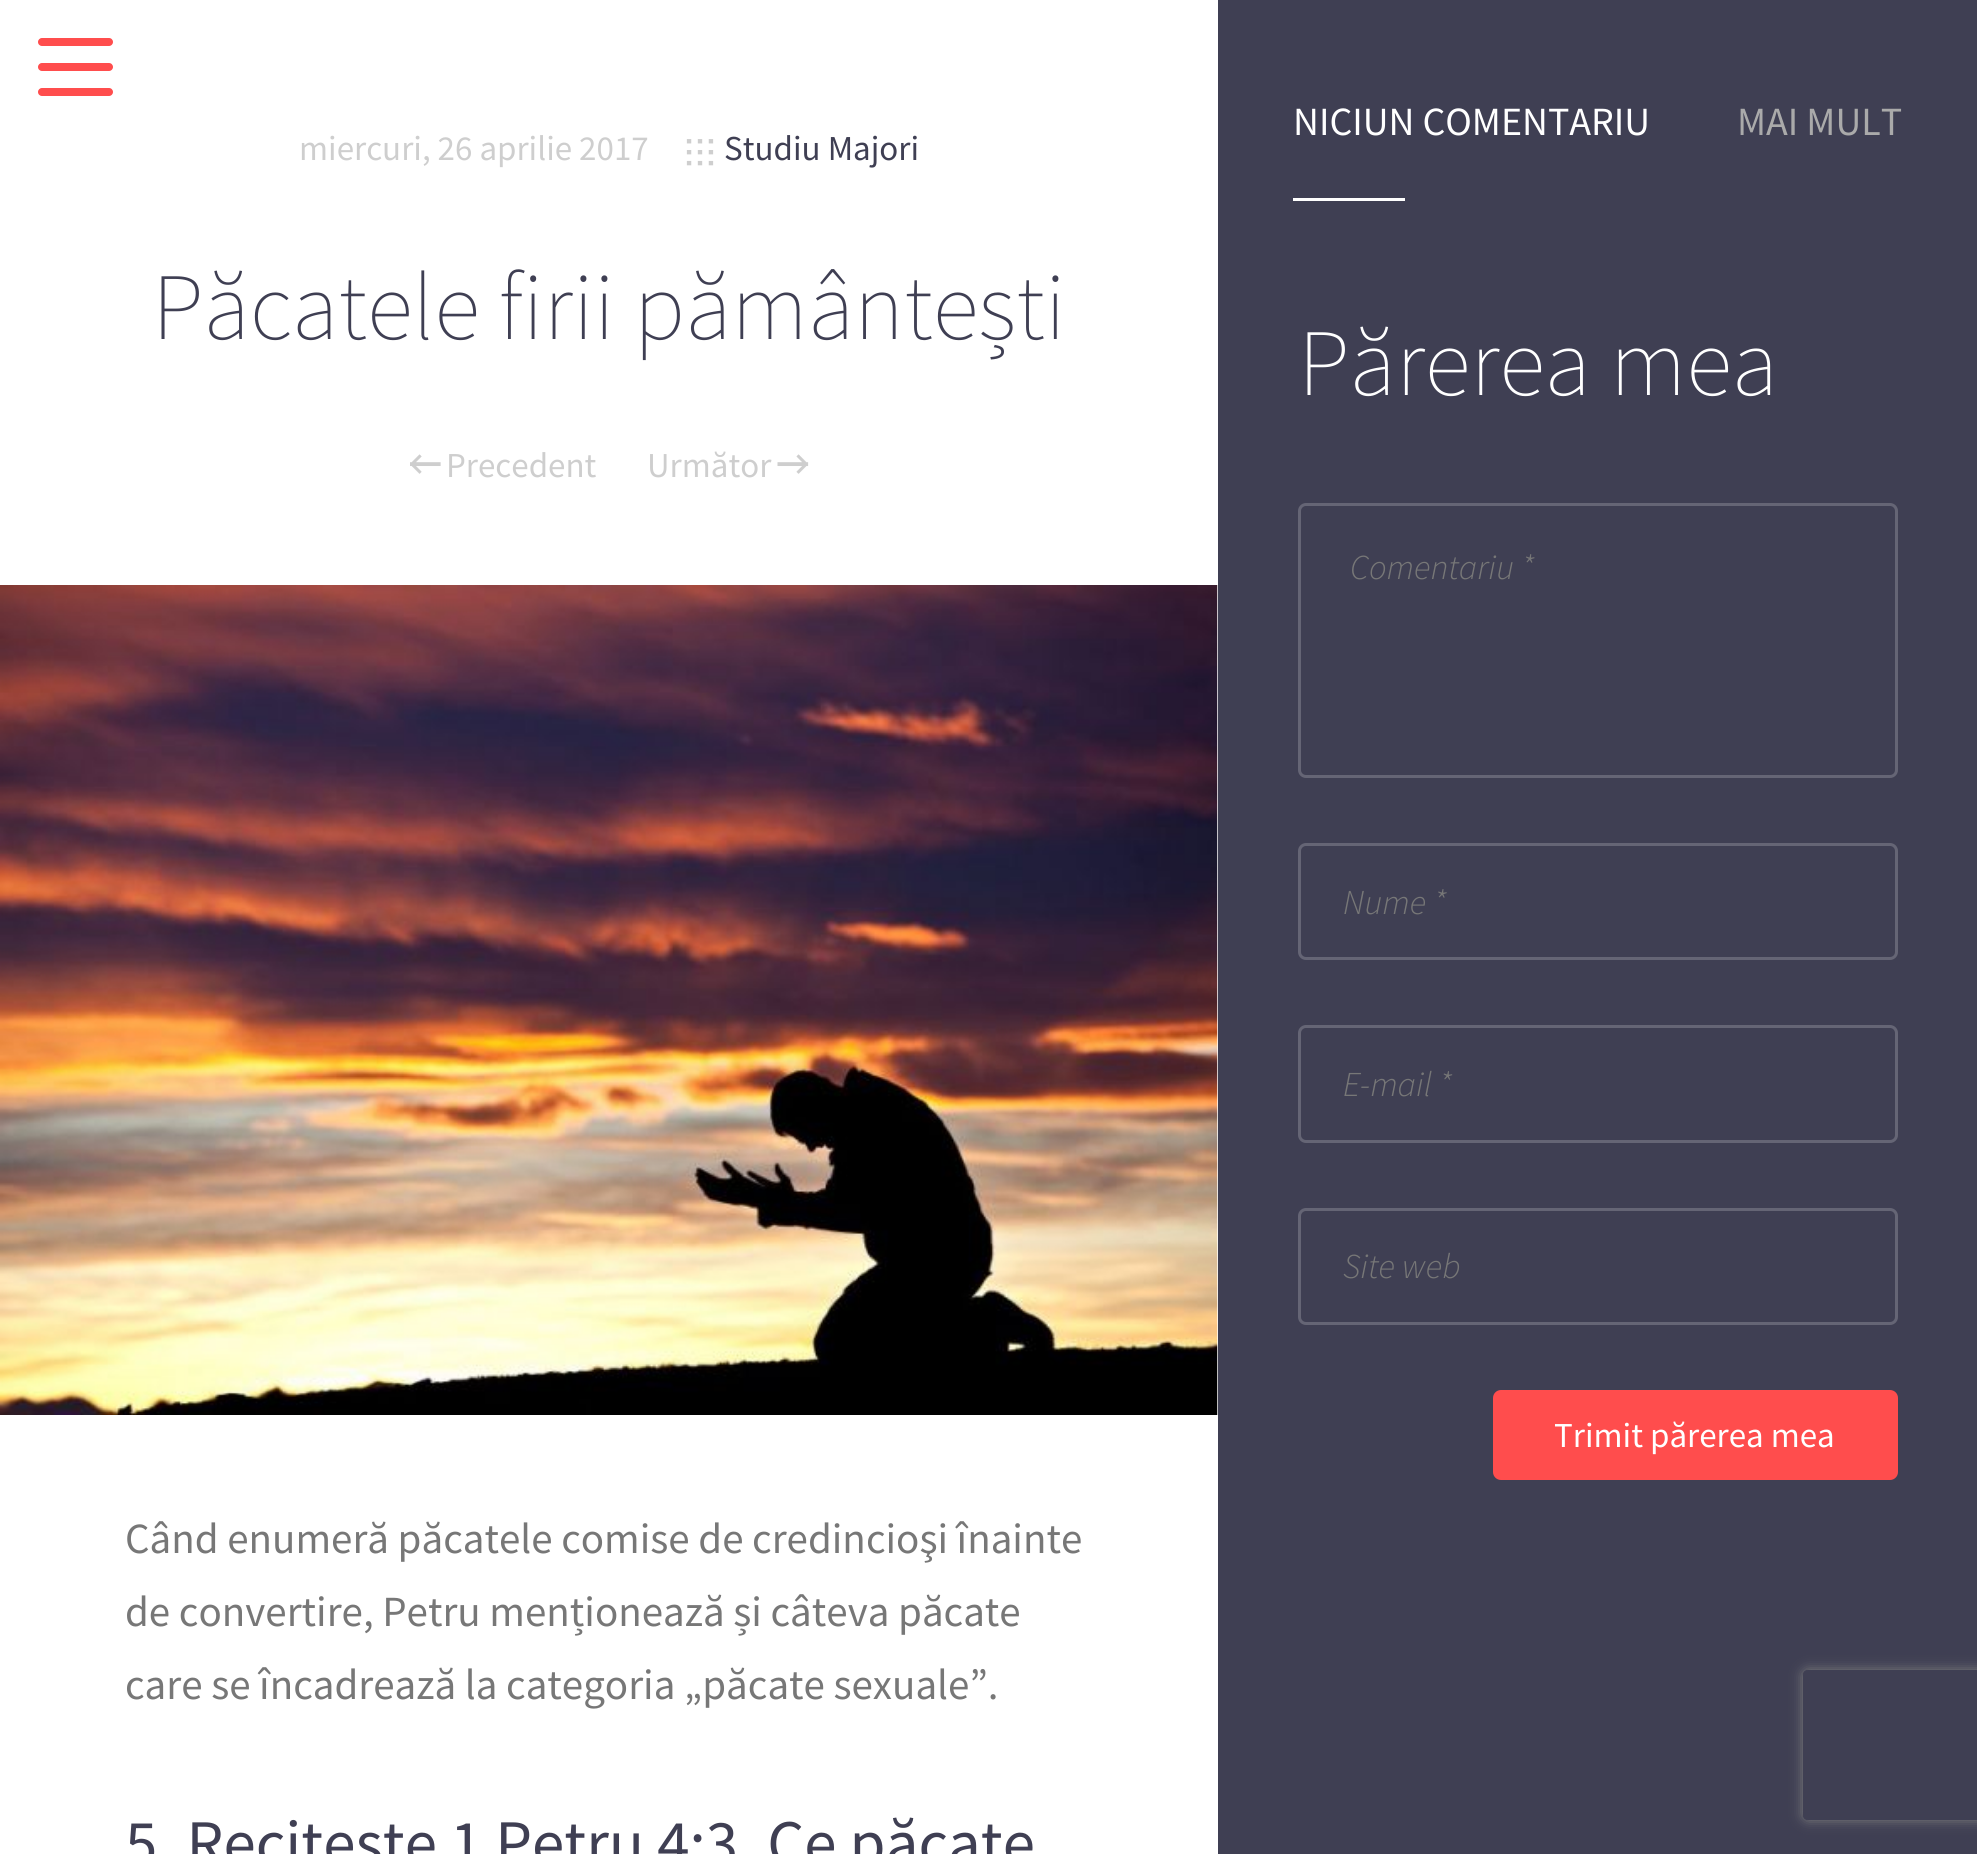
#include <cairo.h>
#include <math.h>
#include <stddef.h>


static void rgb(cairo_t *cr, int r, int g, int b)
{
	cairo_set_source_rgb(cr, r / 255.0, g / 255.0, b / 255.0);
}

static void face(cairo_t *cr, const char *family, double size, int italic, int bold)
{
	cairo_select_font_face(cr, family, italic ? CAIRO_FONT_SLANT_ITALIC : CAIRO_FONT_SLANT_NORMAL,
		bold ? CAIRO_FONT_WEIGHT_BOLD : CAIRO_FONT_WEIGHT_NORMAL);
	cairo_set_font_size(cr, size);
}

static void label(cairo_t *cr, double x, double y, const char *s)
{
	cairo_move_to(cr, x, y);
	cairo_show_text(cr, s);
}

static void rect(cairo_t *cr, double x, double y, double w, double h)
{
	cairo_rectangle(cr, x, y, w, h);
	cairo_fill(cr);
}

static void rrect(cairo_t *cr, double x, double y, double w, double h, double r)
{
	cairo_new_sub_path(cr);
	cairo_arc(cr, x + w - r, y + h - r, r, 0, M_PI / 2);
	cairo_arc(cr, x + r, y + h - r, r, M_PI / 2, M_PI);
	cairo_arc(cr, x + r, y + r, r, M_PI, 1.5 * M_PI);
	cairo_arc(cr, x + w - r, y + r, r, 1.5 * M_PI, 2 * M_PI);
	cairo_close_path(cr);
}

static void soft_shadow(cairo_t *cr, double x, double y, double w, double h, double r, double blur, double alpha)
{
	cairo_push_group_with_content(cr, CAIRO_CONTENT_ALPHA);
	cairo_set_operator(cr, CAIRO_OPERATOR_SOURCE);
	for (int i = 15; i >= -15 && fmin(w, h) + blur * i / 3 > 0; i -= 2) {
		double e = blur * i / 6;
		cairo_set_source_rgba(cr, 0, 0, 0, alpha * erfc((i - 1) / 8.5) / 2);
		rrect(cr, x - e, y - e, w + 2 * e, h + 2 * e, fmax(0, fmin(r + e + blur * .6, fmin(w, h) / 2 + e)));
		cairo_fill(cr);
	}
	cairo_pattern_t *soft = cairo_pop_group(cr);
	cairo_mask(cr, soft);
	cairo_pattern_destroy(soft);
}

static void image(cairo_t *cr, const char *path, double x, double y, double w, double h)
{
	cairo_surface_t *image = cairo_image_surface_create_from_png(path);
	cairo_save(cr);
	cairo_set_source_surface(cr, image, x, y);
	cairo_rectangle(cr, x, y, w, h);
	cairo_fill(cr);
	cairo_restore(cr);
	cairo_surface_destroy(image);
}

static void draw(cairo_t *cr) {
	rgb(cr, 255, 255, 255);
	cairo_paint(cr);
	rgb(cr, 255, 77, 77);
	rrect(cr, 38, 63, 75, 8, 4);
	cairo_fill(cr);
	rrect(cr, 38, 38, 75, 8, 4);
	cairo_fill(cr);
	rrect(cr, 38, 88, 75, 8, 4);
	cairo_fill(cr);
	face(cr, "Source Sans Pro", 35, 0, 0);
	rgb(cr, 206, 206, 206);
	label(cr, 299, 160, "miercuri, 26 aprilie 2017");
	image(cr, "image0.png", 686, 139, 28, 27);
	rgb(cr, 63, 63, 83);
	label(cr, 724, 160, "Studiu Majori");
	face(cr, "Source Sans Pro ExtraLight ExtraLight", 95, 0, 0);
	label(cr, 152, 339, "Păcatele firii pământești");
	image(cr, "image1.png", 410, 454, 31, 20);
	face(cr, "Source Sans Pro", 35, 0, 0);
	rgb(cr, 206, 206, 206);
	label(cr, 446, 477, "Precedent");
	label(cr, 647, 477, "Următor");
	image(cr, "image2.png", 777, 454, 32, 20);
	image(cr, "image3.png", 0, 585, 1218, 830);
	face(cr, "Source Sans Pro", 43, 0, 0);
	rgb(cr, 119, 119, 119);
	label(cr, 125, 1553, "Când enumeră păcatele comise de credincioşi înainte");
	label(cr, 125, 1626, "de convertire, Petru menționează și câteva păcate");
	label(cr, 125, 1699, "care se încadrează la categoria „păcate sexuale”.");
	face(cr, "Source Sans Pro", 65, 0, 0);
	rgb(cr, 63, 63, 83);
	label(cr, 125, 1865, "5. Recitește 1 Petru 4:3. Ce păcate");
	rect(cr, 1218, 0, 759, 1854);
	face(cr, "Source Sans Pro", 40, 0, 0);
	rgb(cr, 255, 255, 255);
	label(cr, 1293, 135, "NICIUN COMENTARIU");
	rgb(cr, 170, 170, 170);
	label(cr, 1737, 135, "MAI MULT");
	rgb(cr, 255, 255, 255);
	rect(cr, 1293, 198, 112, 3);
	face(cr, "Source Sans Pro ExtraLight ExtraLight", 95, 0, 0);
	label(cr, 1298, 395, "Părerea mea");
	rrect(cr, 1299.5, 504.5, 597, 272, 6.5);
	rgb(cr, 101, 101, 117);
	cairo_set_line_width(cr, 3);
	cairo_stroke(cr);
	face(cr, "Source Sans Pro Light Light", 35, 1, 0);
	rgb(cr, 119, 119, 119);
	label(cr, 1350, 579, "Comentariu *");
	rrect(cr, 1299.5, 844.5, 597, 114, 6.5);
	rgb(cr, 101, 101, 117);
	cairo_stroke(cr);
	rgb(cr, 119, 119, 119);
	label(cr, 1343, 914, "Nume *");
	rrect(cr, 1299.5, 1026.5, 597, 115, 6.5);
	rgb(cr, 101, 101, 117);
	cairo_stroke(cr);
	rgb(cr, 119, 119, 119);
	label(cr, 1343, 1096, "E-mail *");
	rrect(cr, 1299.5, 1209.5, 597, 114, 6.5);
	rgb(cr, 101, 101, 117);
	cairo_stroke(cr);
	rgb(cr, 119, 119, 119);
	label(cr, 1343, 1278, "Site web");
	rgb(cr, 255, 77, 77);
	rrect(cr, 1493, 1390, 405, 90, 8);
	cairo_fill(cr);
	face(cr, "Source Sans Pro", 35, 0, 0);
	rgb(cr, 255, 255, 255);
	label(cr, 1554, 1447, "Trimit părerea mea");
	cairo_save(cr);
	cairo_set_fill_rule(cr, CAIRO_FILL_RULE_EVEN_ODD);
	cairo_new_path(cr);
	cairo_move_to(cr, 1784, 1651);
	cairo_line_to(cr, 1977, 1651);
	cairo_line_to(cr, 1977, 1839);
	cairo_line_to(cr, 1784, 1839);
	cairo_close_path(cr);
	cairo_move_to(cr, 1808, 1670);
	cairo_line_to(cr, 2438, 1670);
	cairo_curve_to(cr, 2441, 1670, 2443, 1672, 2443, 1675);
	cairo_line_to(cr, 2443, 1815);
	cairo_curve_to(cr, 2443, 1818, 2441, 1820, 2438, 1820);
	cairo_line_to(cr, 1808, 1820);
	cairo_curve_to(cr, 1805, 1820, 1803, 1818, 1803, 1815);
	cairo_line_to(cr, 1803, 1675);
	cairo_curve_to(cr, 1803, 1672, 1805, 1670, 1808, 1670);
	cairo_close_path(cr);
	cairo_clip(cr);
	rgb(cr, 128, 128, 128);
	soft_shadow(cr, 1803, 1670, 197, 150, 5, 6, 1);
	cairo_restore(cr);
}

int main(void) {
	cairo_surface_t *surface = cairo_image_surface_create(CAIRO_FORMAT_RGB24, 1977, 1854);
	cairo_t *cr = cairo_create(surface);
	cairo_font_options_t *options = cairo_font_options_create();
	cairo_font_options_set_hint_metrics(options, CAIRO_HINT_METRICS_OFF);
	cairo_font_options_set_hint_style(options, CAIRO_HINT_STYLE_NONE);
	cairo_set_font_options(cr, options);
	cairo_set_miter_limit(cr, 4);
	draw(cr);
	cairo_surface_write_to_png(surface, "render.png");
	cairo_font_options_destroy(options);
	cairo_destroy(cr);
	cairo_surface_destroy(surface);
	return 0;
}
